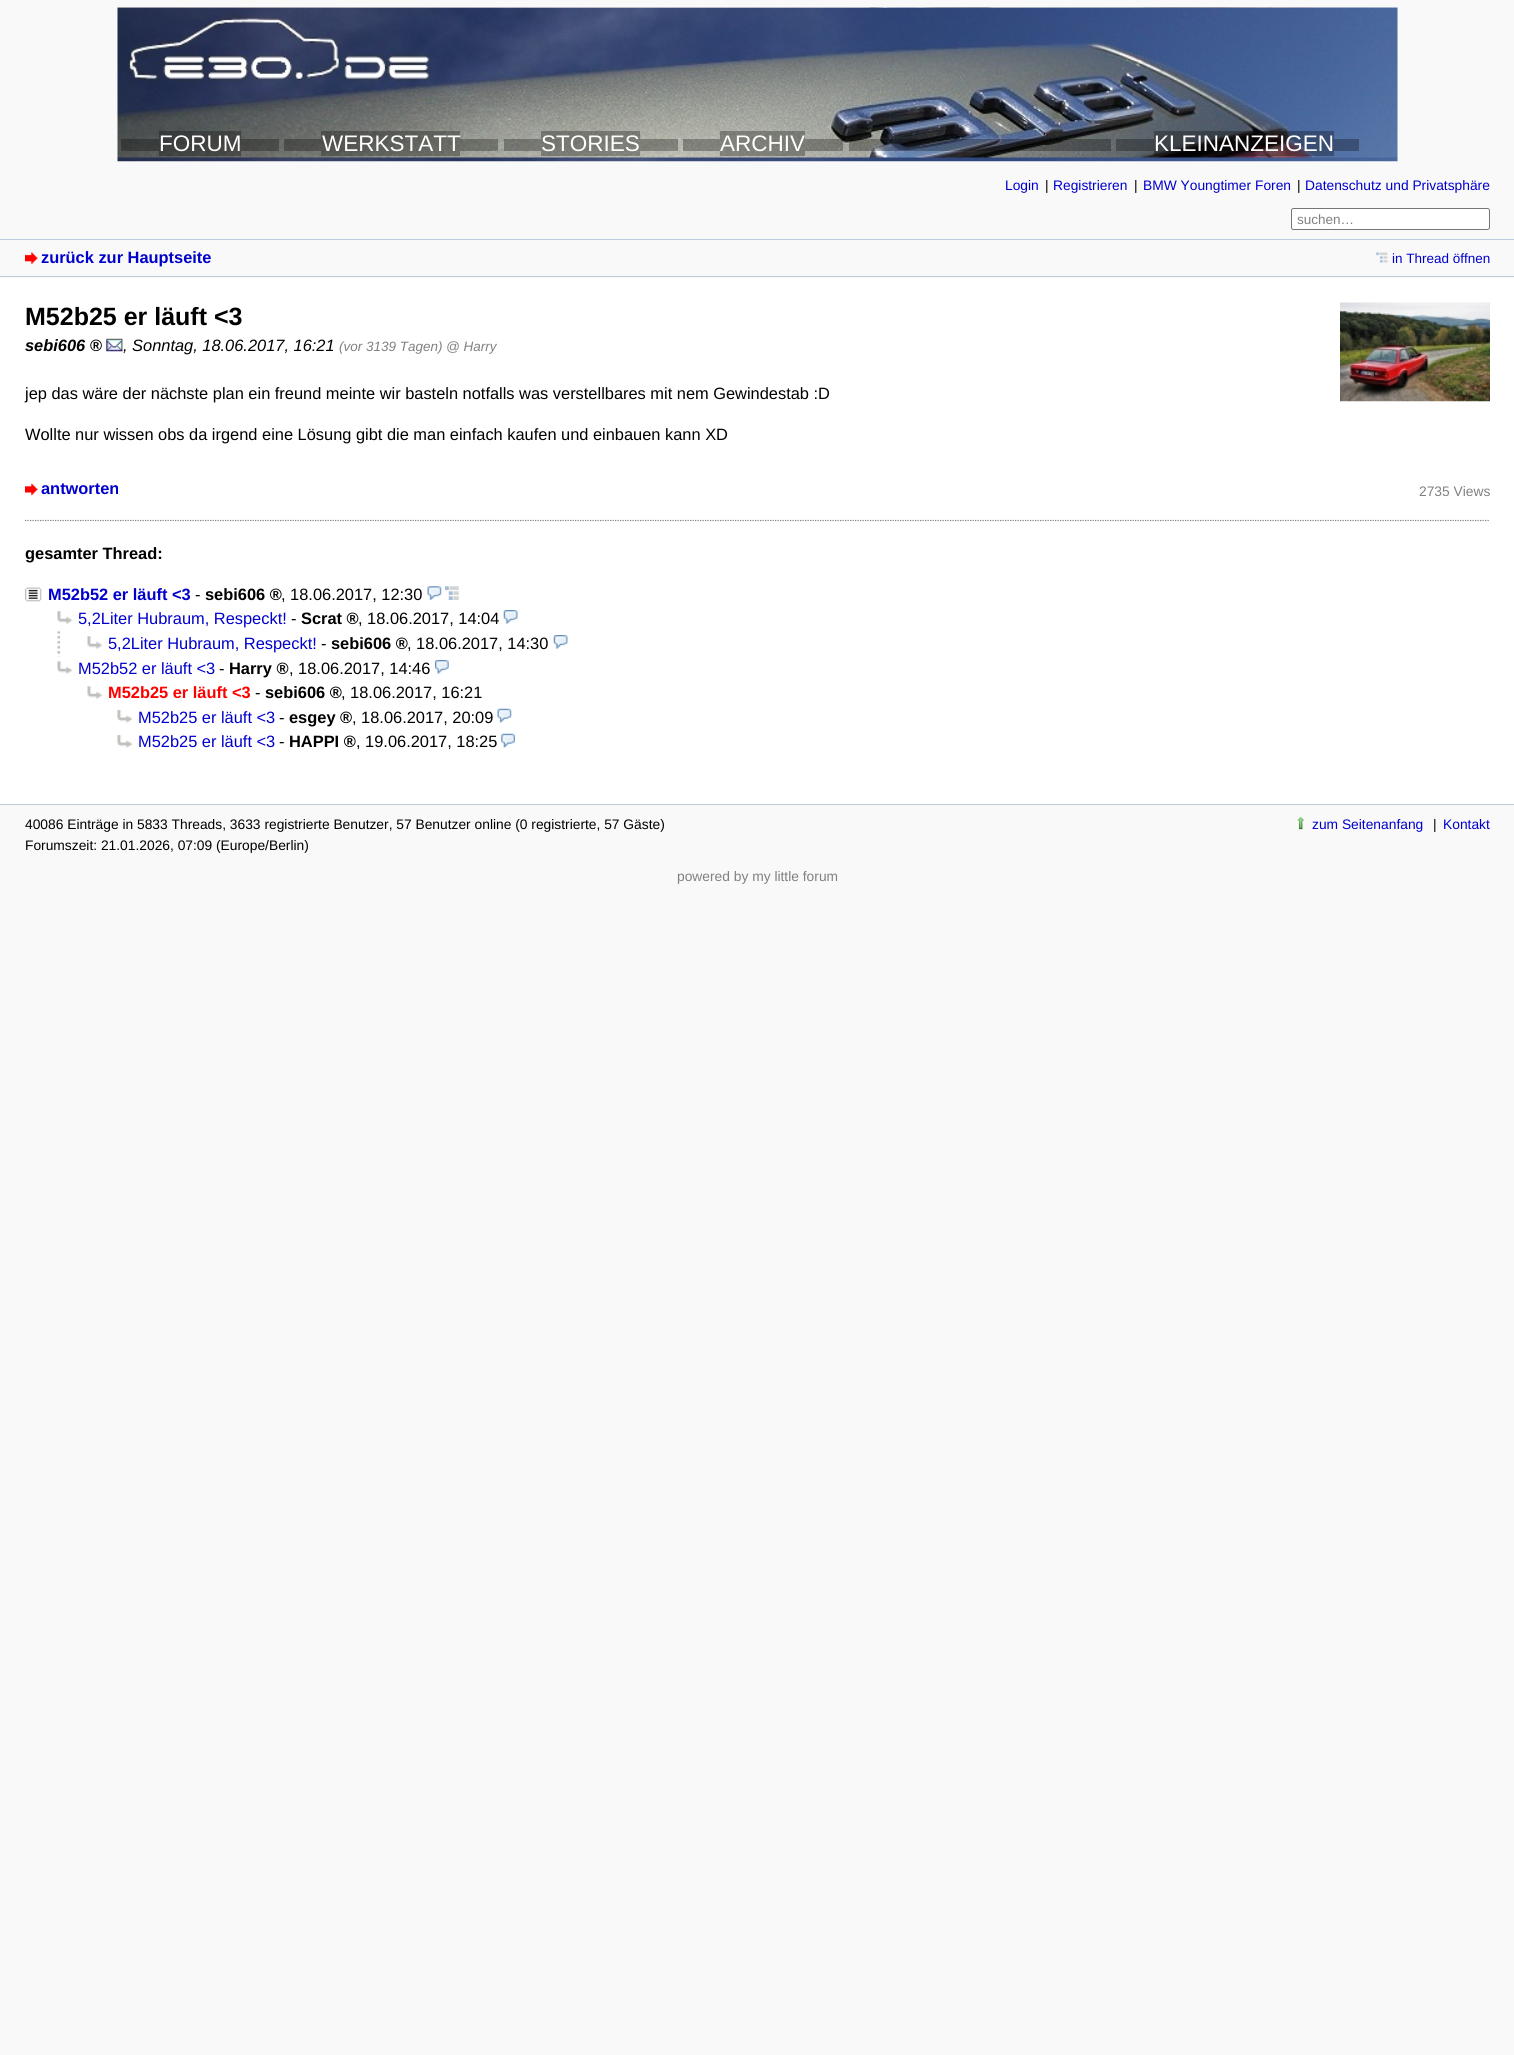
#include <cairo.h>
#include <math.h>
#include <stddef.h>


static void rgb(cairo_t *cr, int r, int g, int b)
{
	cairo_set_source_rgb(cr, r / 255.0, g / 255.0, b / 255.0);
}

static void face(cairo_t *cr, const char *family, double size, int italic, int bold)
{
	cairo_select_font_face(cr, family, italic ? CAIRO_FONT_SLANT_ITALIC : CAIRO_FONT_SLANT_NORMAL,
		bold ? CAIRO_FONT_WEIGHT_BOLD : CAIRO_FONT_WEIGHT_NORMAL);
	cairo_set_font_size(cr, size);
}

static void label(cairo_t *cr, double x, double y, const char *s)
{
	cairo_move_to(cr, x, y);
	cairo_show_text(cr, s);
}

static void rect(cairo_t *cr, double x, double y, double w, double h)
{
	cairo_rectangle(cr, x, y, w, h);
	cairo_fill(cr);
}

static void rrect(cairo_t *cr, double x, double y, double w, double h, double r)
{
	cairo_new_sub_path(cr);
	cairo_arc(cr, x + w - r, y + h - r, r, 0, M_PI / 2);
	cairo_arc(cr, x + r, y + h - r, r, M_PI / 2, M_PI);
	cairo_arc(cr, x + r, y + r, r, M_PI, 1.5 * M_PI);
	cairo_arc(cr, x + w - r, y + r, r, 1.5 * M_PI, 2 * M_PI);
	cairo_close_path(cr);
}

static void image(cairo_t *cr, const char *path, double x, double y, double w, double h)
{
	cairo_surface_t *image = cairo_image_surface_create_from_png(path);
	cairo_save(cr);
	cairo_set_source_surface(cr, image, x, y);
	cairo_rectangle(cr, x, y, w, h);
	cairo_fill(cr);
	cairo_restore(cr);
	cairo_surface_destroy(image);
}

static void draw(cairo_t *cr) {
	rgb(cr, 249, 249, 249);
	cairo_paint(cr);
	image(cr, "image0.png", 117, 7, 1281, 155);
	cairo_set_source_rgba(cr, 0, 0, 0, 0.3);
	rect(cr, 159, 131, 82, 25);
	face(cr, "Liberation Sans", 22.5, 0, 0);
	rgb(cr, 255, 255, 255);
	label(cr, 159, 151, "FORUM");
	cairo_set_source_rgba(cr, 0, 0, 0, 0.3);
	rect(cr, 121, 139, 38, 12);
	rect(cr, 241, 139, 38, 12);
	rect(cr, 321, 131, 139, 25);
	rect(cr, 460, 139, 38, 12);
	rgb(cr, 255, 255, 255);
	label(cr, 322, 151, "WERKSTATT");
	cairo_set_source_rgba(cr, 0, 0, 0, 0.3);
	rect(cr, 284, 139, 37, 12);
	rect(cr, 541, 131, 99, 25);
	rgb(cr, 255, 255, 255);
	label(cr, 541, 151, "STORIES");
	cairo_set_source_rgba(cr, 0, 0, 0, 0.3);
	rect(cr, 504, 139, 37, 12);
	rect(cr, 640, 139, 38, 12);
	rect(cr, 720, 131, 85, 25);
	rect(cr, 805, 139, 38, 12);
	rgb(cr, 255, 255, 255);
	label(cr, 720, 151, "ARCHIV");
	cairo_set_source_rgba(cr, 0, 0, 0, 0.3);
	rect(cr, 683, 139, 37, 12);
	rect(cr, 849, 139, 225, 12);
	rect(cr, 1074, 139, 37, 12);
	rect(cr, 1154, 131, 180, 25);
	rgb(cr, 255, 255, 255);
	label(cr, 1154, 151, "KLEINANZEIGEN");
	cairo_set_source_rgba(cr, 0, 0, 0, 0.3);
	rect(cr, 1116, 139, 38, 12);
	rect(cr, 1334, 139, 25, 12);
	face(cr, "Liberation Sans", 13.8, 0, 0);
	rgb(cr, 0, 0, 204);
	label(cr, 1005, 190, "Login");
	rgb(cr, 0, 0, 0);
	label(cr, 1045, 190, "|");
	rgb(cr, 0, 0, 204);
	label(cr, 1053, 190, "Registrieren");
	rgb(cr, 0, 0, 0);
	label(cr, 1134, 190, "|");
	rgb(cr, 0, 0, 204);
	label(cr, 1143, 190, "BMW Youngtimer Foren");
	rgb(cr, 0, 0, 0);
	label(cr, 1297, 190, "|");
	rgb(cr, 0, 0, 204);
	label(cr, 1305, 190, "Datenschutz und Privatsphäre");
	rgb(cr, 255, 255, 255);
	rrect(cr, 1291.5, 208.5, 198, 21, 2);
	cairo_fill_preserve(cr);
	rgb(cr, 118, 118, 118);
	cairo_set_line_width(cr, 1);
	cairo_stroke(cr);
	face(cr, "Liberation Sans", 13.5, 0, 0);
	rgb(cr, 128, 128, 128);
	label(cr, 1297, 224, "suchen…");
	rgb(cr, 186, 203, 223);
	rect(cr, 0, 239, 1514, 1);
	rect(cr, 0, 276, 1514, 1);
	image(cr, "image1.png", 25, 252, 13, 12);
	face(cr, "Liberation Sans", 16.4, 0, 1);
	rgb(cr, 0, 0, 204);
	label(cr, 41, 263, "zurück zur Hauptseite");
	image(cr, "image2.png", 1376, 252, 12, 11);
	face(cr, "Liberation Sans", 13.5, 0, 0);
	label(cr, 1392, 263, "in Thread öffnen");
	rgb(cr, 255, 255, 255);
	rect(cr, 0, 278, 1514, 526);
	face(cr, "Liberation Sans", 25, 0, 1);
	rgb(cr, 0, 0, 0);
	label(cr, 25, 325, "M52b25 er läuft <3");
	image(cr, "image3.png", 1340, 302, 150, 100);
	face(cr, "Liberation Sans", 16.4, 1, 1);
	label(cr, 25, 351, "sebi606 ®");
	image(cr, "image4.png", 106, 338, 17, 14);
	face(cr, "Liberation Sans", 16.4, 1, 0);
	label(cr, 123, 351, ", Sonntag, 18.06.2017, 16:21");
	face(cr, "Liberation Sans", 13.5, 1, 0);
	rgb(cr, 128, 128, 128);
	label(cr, 339, 351, "(vor 3139 Tagen)");
	label(cr, 446, 351, "@ Harry");
	face(cr, "Liberation Sans", 16.4, 0, 0);
	rgb(cr, 0, 0, 0);
	label(cr, 25, 399, "jep das wäre der nächste plan ein freund meinte wir basteln notfalls was verstellbares mit nem Gewindestab :D");
	label(cr, 25, 440, "Wollte nur wissen obs da irgend eine Lösung gibt die man einfach kaufen und einbauen kann XD");
	image(cr, "image5.png", 25, 483, 13, 13);
	face(cr, "Liberation Sans", 16.4, 0, 1);
	rgb(cr, 0, 0, 204);
	label(cr, 41, 494, "antworten");
	face(cr, "Liberation Sans", 13.8, 0, 0);
	rgb(cr, 128, 128, 128);
	label(cr, 1419, 496, "2735 Views");
	cairo_new_path(cr);
	cairo_move_to(cr, 25, 520.5);
	cairo_line_to(cr, 1490, 520.5);
	cairo_set_line_width(cr, 1.2);
	cairo_set_dash(cr, (double[]){1.25, 1.25}, 2, 0);
	cairo_stroke(cr);
	face(cr, "Liberation Sans", 16.4, 0, 1);
	rgb(cr, 0, 0, 0);
	label(cr, 25, 559, "gesamter Thread:");
	image(cr, "image6.png", 25, 587, 17, 15);
	rgb(cr, 0, 0, 204);
	label(cr, 48, 600, "M52b52 er läuft <3");
	face(cr, "Liberation Sans", 16.4, 0, 0);
	rgb(cr, 0, 0, 0);
	label(cr, 195, 600, "-");
	face(cr, "Liberation Sans", 16.4, 0, 1);
	label(cr, 205, 600, "sebi606 ®");
	face(cr, "Liberation Sans", 16.4, 0, 0);
	label(cr, 281, 600, ", 18.06.2017, 12:30");
	image(cr, "image7.png", 427, 586, 15, 14);
	image(cr, "image8.png", 445, 586, 14, 14);
	image(cr, "image9.png", 57, 611, 16, 13);
	rgb(cr, 0, 0, 204);
	label(cr, 78, 624, "5,2Liter Hubraum, Respeckt!");
	rgb(cr, 0, 0, 0);
	label(cr, 291, 624, "-");
	face(cr, "Liberation Sans", 16.4, 0, 1);
	label(cr, 301, 624, "Scrat ®");
	face(cr, "Liberation Sans", 16.4, 0, 0);
	label(cr, 358, 624, ", 18.06.2017, 14:04");
	image(cr, "image10.png", 503, 610, 15, 14);
	image(cr, "image11.png", 57, 631, 3, 26);
	image(cr, "image12.png", 87, 636, 16, 13);
	rgb(cr, 0, 0, 204);
	label(cr, 108, 649, "5,2Liter Hubraum, Respeckt!");
	rgb(cr, 0, 0, 0);
	label(cr, 321, 649, "-");
	face(cr, "Liberation Sans", 16.4, 0, 1);
	label(cr, 331, 649, "sebi606 ®");
	face(cr, "Liberation Sans", 16.4, 0, 0);
	label(cr, 407, 649, ", 18.06.2017, 14:30");
	image(cr, "image13.png", 553, 635, 15, 14);
	image(cr, "image9.png", 57, 661, 16, 13);
	rgb(cr, 0, 0, 204);
	label(cr, 78, 674, "M52b52 er läuft <3");
	rgb(cr, 0, 0, 0);
	label(cr, 219, 674, "-");
	face(cr, "Liberation Sans", 16.4, 0, 1);
	label(cr, 229, 674, "Harry ®");
	face(cr, "Liberation Sans", 16.4, 0, 0);
	label(cr, 289, 674, ", 18.06.2017, 14:46");
	image(cr, "image14.png", 435, 660, 14, 14);
	image(cr, "image12.png", 87, 686, 16, 13);
	face(cr, "Liberation Sans", 16.4, 0, 1);
	rgb(cr, 255, 0, 0);
	label(cr, 108, 698, "M52b25 er läuft <3");
	face(cr, "Liberation Sans", 16.4, 0, 0);
	rgb(cr, 0, 0, 0);
	label(cr, 255, 698, "-");
	face(cr, "Liberation Sans", 16.4, 0, 1);
	label(cr, 265, 698, "sebi606 ®");
	face(cr, "Liberation Sans", 16.4, 0, 0);
	label(cr, 341, 698, ", 18.06.2017, 16:21");
	image(cr, "image15.png", 117, 710, 16, 13);
	rgb(cr, 0, 0, 204);
	label(cr, 138, 723, "M52b25 er läuft <3");
	rgb(cr, 0, 0, 0);
	label(cr, 279, 723, "-");
	face(cr, "Liberation Sans", 16.4, 0, 1);
	label(cr, 289, 723, "esgey ®");
	face(cr, "Liberation Sans", 16.4, 0, 0);
	label(cr, 352, 723, ", 18.06.2017, 20:09");
	image(cr, "image16.png", 497, 708, 15, 15);
	image(cr, "image15.png", 117, 735, 16, 13);
	rgb(cr, 0, 0, 204);
	label(cr, 138, 747, "M52b25 er läuft <3");
	rgb(cr, 0, 0, 0);
	label(cr, 279, 747, "-");
	face(cr, "Liberation Sans", 16.4, 0, 1);
	label(cr, 289, 747, "HAPPI ®");
	face(cr, "Liberation Sans", 16.4, 0, 0);
	label(cr, 356, 747, ", 19.06.2017, 18:25");
	image(cr, "image17.png", 501, 733, 14, 15);
	rgb(cr, 186, 203, 223);
	rect(cr, 0, 804, 1514, 1);
	face(cr, "Liberation Sans", 13.8, 0, 0);
	rgb(cr, 0, 0, 0);
	label(cr, 25, 829, "40086 Einträge in 5833 Threads, 3633 registrierte Benutzer, 57 Benutzer online (0 registrierte, 57 Gäste)");
	label(cr, 25, 850, "Forumszeit: 21.01.2026, 07:09 (Europe/Berlin)");
	image(cr, "image18.png", 1297, 817, 7, 13);
	rgb(cr, 0, 0, 204);
	label(cr, 1312, 829, "zum Seitenanfang");
	rgb(cr, 0, 0, 0);
	label(cr, 1433, 829, "|");
	rgb(cr, 0, 0, 204);
	label(cr, 1443, 829, "Kontakt");
	rgb(cr, 128, 128, 128);
	label(cr, 677, 881, "powered by my little forum");
}

int main(void) {
	cairo_surface_t *surface = cairo_image_surface_create(CAIRO_FORMAT_RGB24, 1514, 2055);
	cairo_t *cr = cairo_create(surface);
	cairo_font_options_t *options = cairo_font_options_create();
	cairo_font_options_set_hint_metrics(options, CAIRO_HINT_METRICS_OFF);
	cairo_font_options_set_hint_style(options, CAIRO_HINT_STYLE_NONE);
	cairo_set_font_options(cr, options);
	cairo_set_miter_limit(cr, 4);
	draw(cr);
	cairo_surface_write_to_png(surface, "render.png");
	cairo_font_options_destroy(options);
	cairo_destroy(cr);
	cairo_surface_destroy(surface);
	return 0;
}
